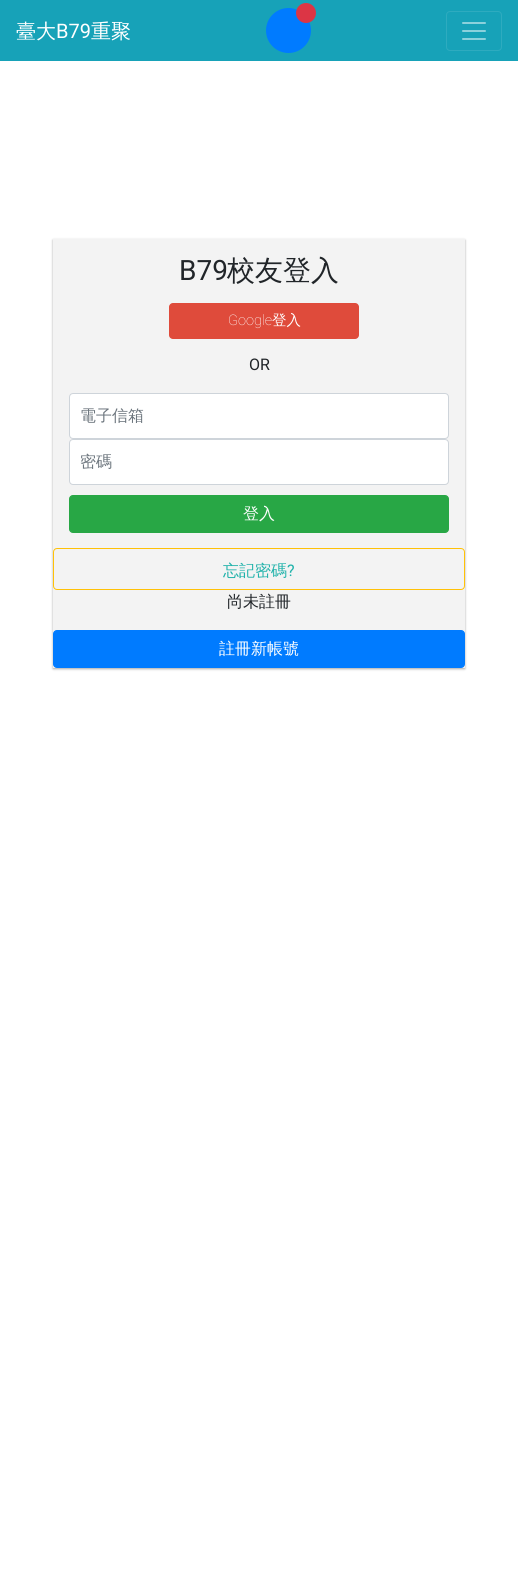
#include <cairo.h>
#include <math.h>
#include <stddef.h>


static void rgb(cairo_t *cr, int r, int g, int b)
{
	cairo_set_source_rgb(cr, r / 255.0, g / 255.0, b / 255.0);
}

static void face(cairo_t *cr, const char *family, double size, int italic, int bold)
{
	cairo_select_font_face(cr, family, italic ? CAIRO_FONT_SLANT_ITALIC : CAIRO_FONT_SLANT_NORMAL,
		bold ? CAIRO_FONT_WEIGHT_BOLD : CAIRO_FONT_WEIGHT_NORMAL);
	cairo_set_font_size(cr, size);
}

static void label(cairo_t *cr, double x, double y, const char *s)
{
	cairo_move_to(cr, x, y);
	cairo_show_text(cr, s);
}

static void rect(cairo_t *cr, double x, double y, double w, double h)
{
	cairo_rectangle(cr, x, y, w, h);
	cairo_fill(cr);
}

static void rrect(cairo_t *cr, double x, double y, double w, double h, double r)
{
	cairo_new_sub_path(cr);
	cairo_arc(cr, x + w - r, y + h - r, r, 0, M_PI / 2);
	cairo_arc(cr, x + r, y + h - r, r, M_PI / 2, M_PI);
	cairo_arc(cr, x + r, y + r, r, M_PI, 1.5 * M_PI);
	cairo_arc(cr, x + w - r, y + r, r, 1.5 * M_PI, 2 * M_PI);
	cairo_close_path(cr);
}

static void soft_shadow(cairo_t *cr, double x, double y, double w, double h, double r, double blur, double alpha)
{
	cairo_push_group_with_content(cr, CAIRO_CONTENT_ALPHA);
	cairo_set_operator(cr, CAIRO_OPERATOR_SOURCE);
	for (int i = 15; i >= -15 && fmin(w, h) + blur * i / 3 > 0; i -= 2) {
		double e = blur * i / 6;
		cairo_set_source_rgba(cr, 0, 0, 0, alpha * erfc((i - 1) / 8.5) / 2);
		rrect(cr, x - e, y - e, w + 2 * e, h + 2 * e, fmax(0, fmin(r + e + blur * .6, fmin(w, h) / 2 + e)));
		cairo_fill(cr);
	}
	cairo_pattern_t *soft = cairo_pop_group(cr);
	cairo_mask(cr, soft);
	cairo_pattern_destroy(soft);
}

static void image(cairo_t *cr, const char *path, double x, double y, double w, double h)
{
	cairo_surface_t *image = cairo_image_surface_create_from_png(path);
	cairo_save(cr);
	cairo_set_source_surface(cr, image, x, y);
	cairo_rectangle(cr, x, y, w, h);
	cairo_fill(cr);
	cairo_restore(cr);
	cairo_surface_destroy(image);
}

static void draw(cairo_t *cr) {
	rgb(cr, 255, 255, 255);
	cairo_paint(cr);
	rgb(cr, 23, 162, 184);
	rect(cr, 0, 0, 518, 61);
	face(cr, "WenQuanYi Zen Hei Medium", 20, 0, 0);
	rgb(cr, 255, 255, 255);
	label(cr, 16, 38, "臺大");
	face(cr, "Roboto", 20, 0, 0);
	label(cr, 56, 38, "B79");
	face(cr, "WenQuanYi Zen Hei Medium", 20, 0, 0);
	label(cr, 91, 38, "重聚");
	rgb(cr, 0, 123, 255);
	cairo_new_path(cr);
	cairo_arc(cr, 288.5, 30.5, 22.5, 0, 2 * M_PI);
	cairo_fill(cr);
	rgb(cr, 220, 53, 69);
	cairo_arc(cr, 306, 13, 10, 0, 2 * M_PI);
	cairo_fill(cr);
	rrect(cr, 446.5, 11.5, 55, 39, 3.5);
	rgb(cr, 46, 171, 191);
	cairo_set_line_width(cr, 1);
	cairo_stroke(cr);
	image(cr, "image0.png", 462, 22, 24, 18);
	rgb(cr, 0, 0, 0);
	soft_shadow(cr, 53, 240, 412, 429, 0, 1, 0.24);
	soft_shadow(cr, 53, 240, 412, 429, 0, 1.5, 0.12);
	rgb(cr, 243, 243, 243);
	rect(cr, 53, 239, 412, 429);
	face(cr, "Roboto", 28, 0, 0);
	rgb(cr, 33, 37, 41);
	label(cr, 179, 280, "B79");
	face(cr, "WenQuanYi Zen Hei Medium", 28, 0, 0);
	label(cr, 227, 280, "校友登入");
	rgb(cr, 223, 75, 59);
	rrect(cr, 169, 303, 190, 36, 4);
	cairo_fill(cr);
	face(cr, "Roboto Thin", 14.5, 0, 0);
	rgb(cr, 255, 255, 255);
	label(cr, 228, 325, "Google");
	face(cr, "WenQuanYi Zen Hei Medium", 14.5, 0, 0);
	label(cr, 272, 325, "登入");
	face(cr, "Roboto", 16, 0, 0);
	rgb(cr, 33, 37, 41);
	label(cr, 249, 370, "OR");
	rgb(cr, 255, 255, 255);
	rrect(cr, 69.5, 393.5, 379, 45, 3.5);
	cairo_fill_preserve(cr);
	rgb(cr, 206, 212, 218);
	cairo_stroke(cr);
	face(cr, "WenQuanYi Zen Hei Medium", 16, 0, 0);
	rgb(cr, 108, 117, 125);
	label(cr, 80, 421, "電子信箱");
	rgb(cr, 255, 255, 255);
	rrect(cr, 69.5, 439.5, 379, 45, 3.5);
	cairo_fill_preserve(cr);
	rgb(cr, 206, 212, 218);
	cairo_stroke(cr);
	rgb(cr, 108, 117, 125);
	label(cr, 80, 467, "密碼");
	rgb(cr, 40, 167, 69);
	rrect(cr, 69.5, 495.5, 379, 37, 3.5);
	cairo_fill_preserve(cr);
	cairo_stroke(cr);
	rgb(cr, 255, 255, 255);
	label(cr, 243, 519, "登入");
	rrect(cr, 53.5, 548.5, 411, 41, 3.5);
	rgb(cr, 255, 193, 7);
	cairo_stroke(cr);
	rgb(cr, 32, 178, 170);
	label(cr, 223, 576, "忘記密碼");
	face(cr, "Roboto", 16, 0, 0);
	label(cr, 287, 576, "?");
	face(cr, "WenQuanYi Zen Hei Medium", 16, 0, 0);
	rgb(cr, 33, 37, 41);
	label(cr, 227, 607, "尚未註冊");
	rgb(cr, 0, 123, 255);
	rrect(cr, 53.5, 630.5, 411, 37, 3.5);
	cairo_fill_preserve(cr);
	cairo_stroke(cr);
	rgb(cr, 255, 255, 255);
	label(cr, 219, 654, "註冊新帳號");
}

int main(void) {
	cairo_surface_t *surface = cairo_image_surface_create(CAIRO_FORMAT_RGB24, 518, 1589);
	cairo_t *cr = cairo_create(surface);
	cairo_font_options_t *options = cairo_font_options_create();
	cairo_font_options_set_hint_metrics(options, CAIRO_HINT_METRICS_OFF);
	cairo_font_options_set_hint_style(options, CAIRO_HINT_STYLE_NONE);
	cairo_set_font_options(cr, options);
	cairo_set_miter_limit(cr, 4);
	draw(cr);
	cairo_surface_write_to_png(surface, "render.png");
	cairo_font_options_destroy(options);
	cairo_destroy(cr);
	cairo_surface_destroy(surface);
	return 0;
}
